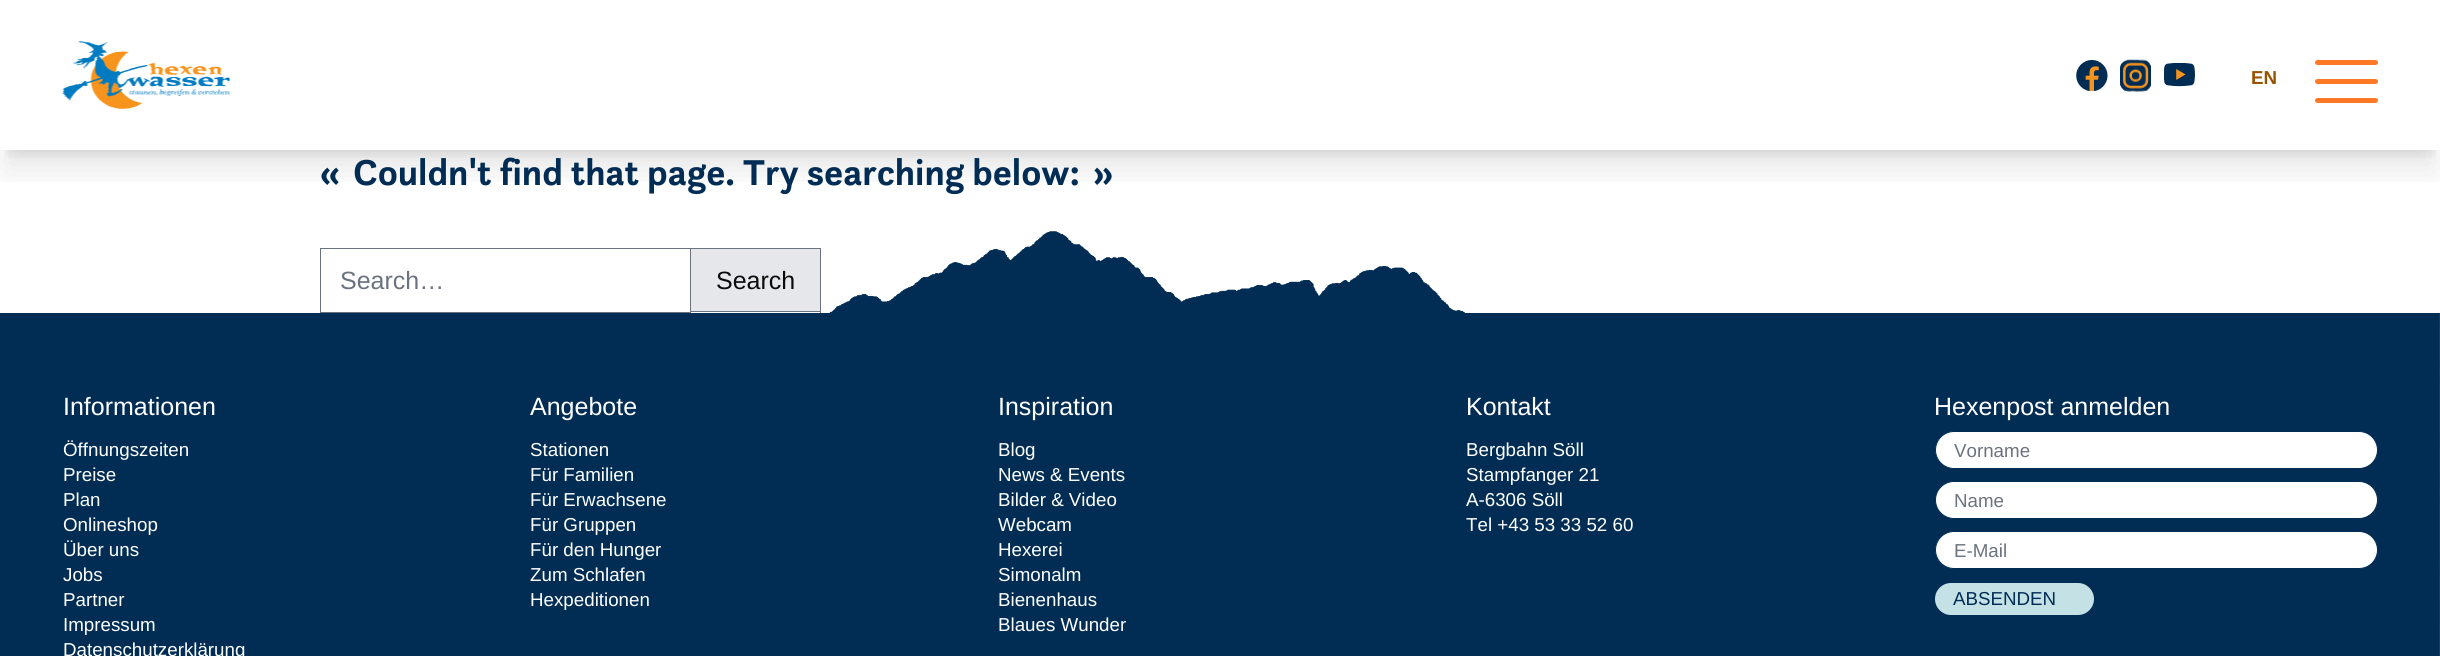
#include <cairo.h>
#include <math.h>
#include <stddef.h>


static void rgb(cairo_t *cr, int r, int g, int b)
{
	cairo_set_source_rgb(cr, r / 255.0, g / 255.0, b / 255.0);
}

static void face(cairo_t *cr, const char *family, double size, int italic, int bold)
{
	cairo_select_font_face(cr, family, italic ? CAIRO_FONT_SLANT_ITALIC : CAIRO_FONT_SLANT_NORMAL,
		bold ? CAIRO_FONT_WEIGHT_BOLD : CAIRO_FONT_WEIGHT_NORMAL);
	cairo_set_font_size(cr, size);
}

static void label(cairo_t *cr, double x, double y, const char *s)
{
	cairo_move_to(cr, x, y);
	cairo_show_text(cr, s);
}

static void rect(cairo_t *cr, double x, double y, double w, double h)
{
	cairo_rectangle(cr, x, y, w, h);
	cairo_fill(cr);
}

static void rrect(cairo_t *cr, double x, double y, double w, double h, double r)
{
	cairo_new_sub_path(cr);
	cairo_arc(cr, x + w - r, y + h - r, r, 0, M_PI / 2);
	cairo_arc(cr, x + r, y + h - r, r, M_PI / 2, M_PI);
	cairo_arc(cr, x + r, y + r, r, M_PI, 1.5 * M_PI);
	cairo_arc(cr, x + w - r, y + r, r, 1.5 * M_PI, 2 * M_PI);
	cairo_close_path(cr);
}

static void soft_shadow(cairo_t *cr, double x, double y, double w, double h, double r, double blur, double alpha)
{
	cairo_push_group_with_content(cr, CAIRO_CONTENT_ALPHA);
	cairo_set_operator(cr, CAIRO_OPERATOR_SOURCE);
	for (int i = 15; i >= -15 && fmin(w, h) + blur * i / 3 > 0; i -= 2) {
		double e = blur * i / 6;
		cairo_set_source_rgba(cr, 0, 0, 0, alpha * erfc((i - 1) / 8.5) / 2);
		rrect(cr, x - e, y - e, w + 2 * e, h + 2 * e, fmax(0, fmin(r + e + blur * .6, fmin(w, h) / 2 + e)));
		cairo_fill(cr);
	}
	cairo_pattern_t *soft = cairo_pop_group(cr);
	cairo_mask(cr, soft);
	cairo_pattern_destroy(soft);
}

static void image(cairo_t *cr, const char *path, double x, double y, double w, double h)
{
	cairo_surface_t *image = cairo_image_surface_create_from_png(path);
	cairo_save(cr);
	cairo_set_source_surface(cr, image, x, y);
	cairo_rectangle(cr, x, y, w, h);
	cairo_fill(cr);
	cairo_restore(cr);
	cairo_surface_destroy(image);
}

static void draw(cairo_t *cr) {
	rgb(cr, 255, 255, 255);
	cairo_paint(cr);
	cairo_save(cr);
	cairo_rectangle(cr, 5, 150, 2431, 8);
	cairo_clip(cr);
	rgb(cr, 0, 0, 0);
	soft_shadow(cr, 8, 18, 2425, 135, 0, 6, 0.1);
	cairo_restore(cr);
	cairo_save(cr);
	cairo_rectangle(cr, 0, 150, 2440, 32);
	cairo_clip(cr);
	rgb(cr, 0, 0, 0);
	soft_shadow(cr, 6, 31, 2428, 138, 0, 15.5, 0.1);
	cairo_restore(cr);
	image(cr, "image0.png", 62, 41, 169, 68);
	image(cr, "image1.png", 2076, 60, 32, 31);
	image(cr, "image2.png", 2120, 59, 31, 33);
	image(cr, "image3.png", 2164, 63, 31, 24);
	face(cr, "Liberation Sans", 18.75, 0, 1);
	rgb(cr, 150, 83, 0);
	label(cr, 2251, 84, "EN");
	rgb(cr, 253, 121, 38);
	rrect(cr, 2315, 60, 63, 5, 2.5);
	cairo_fill(cr);
	rrect(cr, 2315, 79, 63, 5, 2.5);
	cairo_fill(cr);
	rrect(cr, 2315, 98, 63, 5, 2.5);
	cairo_fill(cr);
	rgb(cr, 1, 45, 85);
	rect(cr, 0, 313, 2440, 343);
	image(cr, "image4.png", 2439, 313, 1, 343);
	face(cr, "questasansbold", 37.5, 0, 1);
	label(cr, 320, 185, "«");
	label(cr, 353, 185, "Couldn't find that page. Try searching below:");
	label(cr, 1093, 185, "»");
	cairo_rectangle(cr, 320.5, 248.5, 370, 64);
	rgb(cr, 107, 114, 128);
	cairo_set_line_width(cr, 1);
	cairo_stroke(cr);
	face(cr, "Liberation Sans", 25, 0, 0);
	label(cr, 340, 289, "Search…");
	rgb(cr, 229, 231, 235);
	rect(cr, 691, 249, 129, 62);
	rgb(cr, 107, 114, 128);
	rect(cr, 691, 248, 130, 1);
	rect(cr, 820, 248, 1, 65);
	rect(cr, 691, 311, 130, 1);
	rgb(cr, 11, 11, 11);
	label(cr, 716, 289, "Search");
	image(cr, "image5.png", 829, 231, 636, 82);
	rgb(cr, 255, 255, 255);
	label(cr, 63, 415, "Informationen");
	face(cr, "Liberation Sans", 18.75, 0, 0);
	label(cr, 63, 456, "Öffnungszeiten");
	label(cr, 63, 481, "Preise");
	label(cr, 63, 506, "Plan");
	label(cr, 63, 531, "Onlineshop");
	label(cr, 63, 556, "Über uns");
	label(cr, 63, 581, "Jobs");
	label(cr, 63, 606, "Partner");
	label(cr, 63, 631, "Impressum");
	label(cr, 63, 656, "Datenschutzerklärung");
	face(cr, "Liberation Sans", 25, 0, 0);
	label(cr, 530, 415, "Angebote");
	face(cr, "Liberation Sans", 18.75, 0, 0);
	label(cr, 530, 456, "Stationen");
	label(cr, 530, 481, "Für Familien");
	label(cr, 530, 506, "Für Erwachsene");
	label(cr, 530, 531, "Für Gruppen");
	label(cr, 530, 556, "Für den Hunger");
	label(cr, 530, 581, "Zum Schlafen");
	label(cr, 530, 606, "Hexpeditionen");
	face(cr, "Liberation Sans", 25, 0, 0);
	label(cr, 998, 415, "Inspiration");
	face(cr, "Liberation Sans", 18.75, 0, 0);
	label(cr, 998, 456, "Blog");
	label(cr, 998, 481, "News & Events");
	label(cr, 998, 506, "Bilder & Video");
	label(cr, 998, 531, "Webcam");
	label(cr, 998, 556, "Hexerei");
	label(cr, 998, 581, "Simonalm");
	label(cr, 998, 606, "Bienenhaus");
	label(cr, 998, 631, "Blaues Wunder");
	face(cr, "Liberation Sans", 25, 0, 0);
	label(cr, 1466, 415, "Kontakt");
	face(cr, "Liberation Sans", 18.75, 0, 0);
	label(cr, 1466, 456, "Bergbahn Söll");
	label(cr, 1466, 481, "Stampfanger 21");
	label(cr, 1466, 506, "A-6306 Söll");
	label(cr, 1466, 531, "Tel +43 53 33 52 60");
	face(cr, "Liberation Sans", 25, 0, 0);
	label(cr, 1934, 415, "Hexenpost anmelden");
	rrect(cr, 1935.5, 431.5, 442, 37, 18.5);
	cairo_fill_preserve(cr);
	rgb(cr, 1, 45, 85);
	cairo_stroke(cr);
	face(cr, "Liberation Sans", 18.75, 0, 0);
	rgb(cr, 107, 114, 128);
	label(cr, 1954, 457, "Vorname");
	rgb(cr, 255, 255, 255);
	rrect(cr, 1935.5, 481.5, 442, 37, 18.5);
	cairo_fill_preserve(cr);
	rgb(cr, 1, 45, 85);
	cairo_stroke(cr);
	rgb(cr, 107, 114, 128);
	label(cr, 1954, 507, "Name");
	rgb(cr, 255, 255, 255);
	rrect(cr, 1935.5, 531.5, 442, 37, 18.5);
	cairo_fill_preserve(cr);
	rgb(cr, 1, 45, 85);
	cairo_stroke(cr);
	rgb(cr, 107, 114, 128);
	label(cr, 1954, 557, "E-Mail");
	rgb(cr, 196, 226, 230);
	rrect(cr, 1935, 583, 159, 32, 16);
	cairo_fill(cr);
	rgb(cr, 1, 45, 85);
	label(cr, 1953, 605, "ABSENDEN");
}

int main(void) {
	cairo_surface_t *surface = cairo_image_surface_create(CAIRO_FORMAT_RGB24, 2440, 656);
	cairo_t *cr = cairo_create(surface);
	cairo_font_options_t *options = cairo_font_options_create();
	cairo_font_options_set_hint_metrics(options, CAIRO_HINT_METRICS_OFF);
	cairo_font_options_set_hint_style(options, CAIRO_HINT_STYLE_NONE);
	cairo_set_font_options(cr, options);
	cairo_set_miter_limit(cr, 4);
	draw(cr);
	cairo_surface_write_to_png(surface, "render.png");
	cairo_font_options_destroy(options);
	cairo_destroy(cr);
	cairo_surface_destroy(surface);
	return 0;
}
